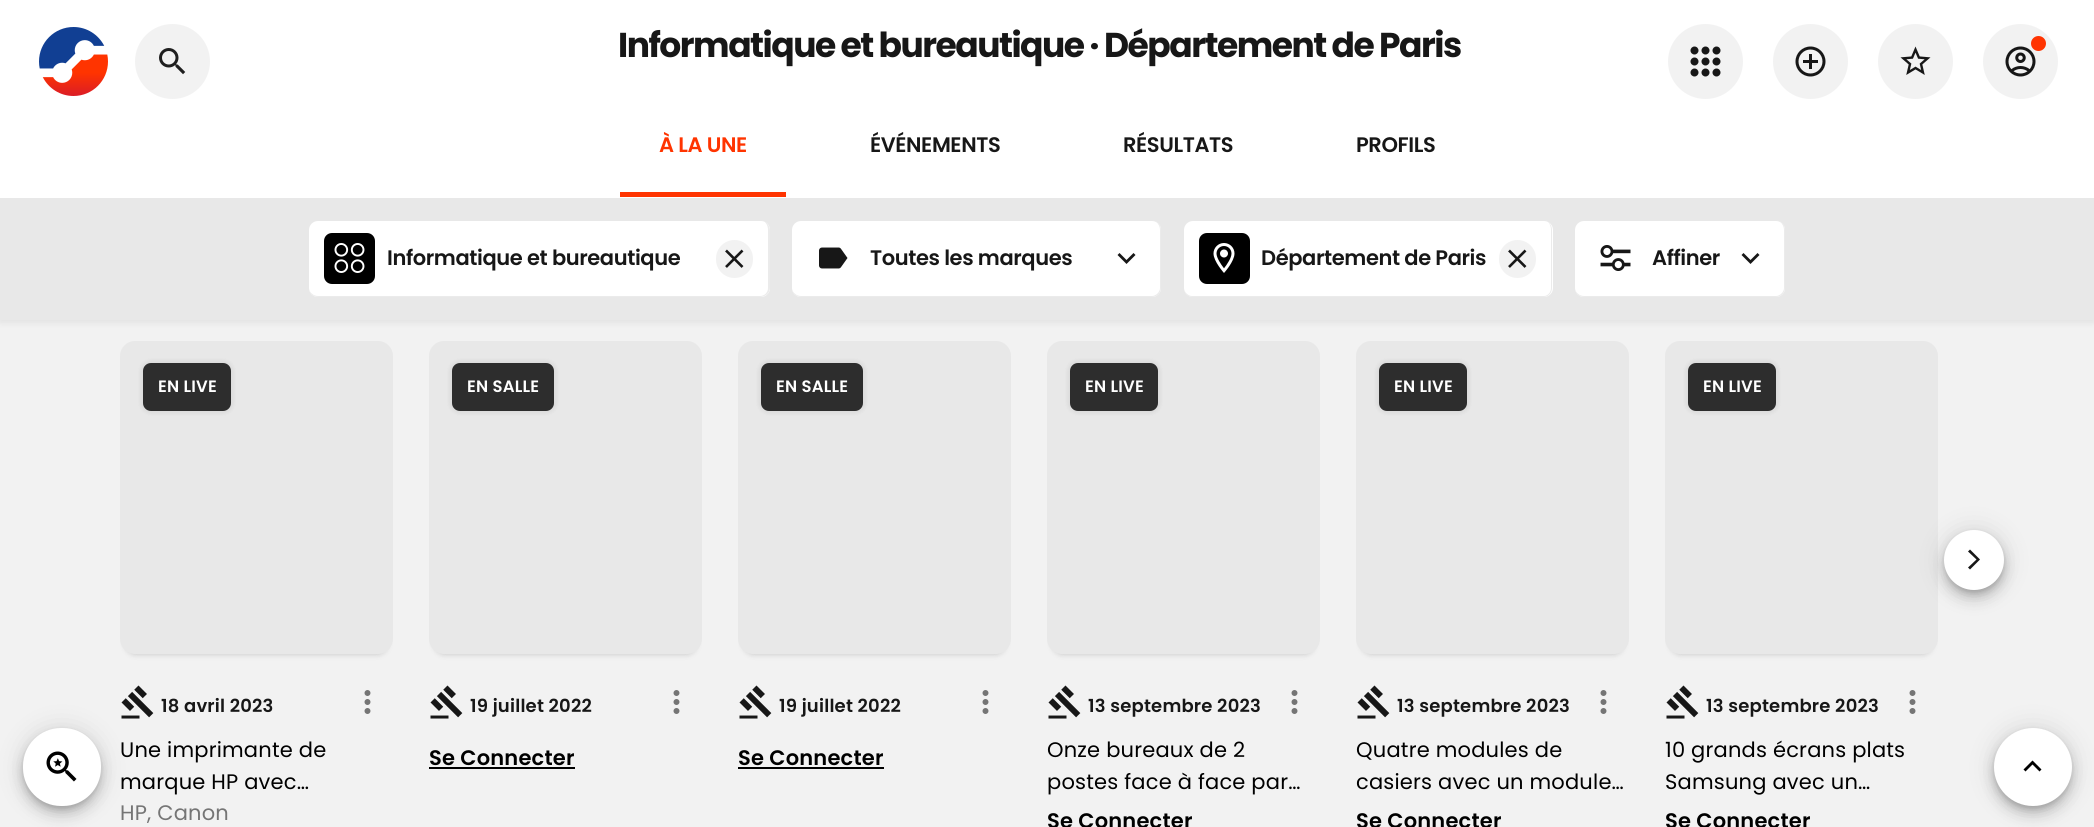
#include <cairo.h>
#include <math.h>
#include <stddef.h>


static void rgb(cairo_t *cr, int r, int g, int b)
{
	cairo_set_source_rgb(cr, r / 255.0, g / 255.0, b / 255.0);
}

static void face(cairo_t *cr, const char *family, double size, int italic, int bold)
{
	cairo_select_font_face(cr, family, italic ? CAIRO_FONT_SLANT_ITALIC : CAIRO_FONT_SLANT_NORMAL,
		bold ? CAIRO_FONT_WEIGHT_BOLD : CAIRO_FONT_WEIGHT_NORMAL);
	cairo_set_font_size(cr, size);
}

static void tracked(cairo_t *cr, double x, double y, const char *s, double letter, double word)
{
	cairo_move_to(cr, x, y);
	while (*s) {
		char ch[5] = {0};
		int n = 0;
		do ch[n++] = *s++; while ((*s & 0xC0) == 0x80);
		cairo_show_text(cr, ch);
		cairo_rel_move_to(cr, letter + word * (*ch == ' '), 0);
	}
}

static void rect(cairo_t *cr, double x, double y, double w, double h)
{
	cairo_rectangle(cr, x, y, w, h);
	cairo_fill(cr);
}

static void rrect(cairo_t *cr, double x, double y, double w, double h, double r)
{
	cairo_new_sub_path(cr);
	cairo_arc(cr, x + w - r, y + h - r, r, 0, M_PI / 2);
	cairo_arc(cr, x + r, y + h - r, r, M_PI / 2, M_PI);
	cairo_arc(cr, x + r, y + r, r, M_PI, 1.5 * M_PI);
	cairo_arc(cr, x + w - r, y + r, r, 1.5 * M_PI, 2 * M_PI);
	cairo_close_path(cr);
}

static void soft_shadow(cairo_t *cr, double x, double y, double w, double h, double r, double blur, double alpha)
{
	cairo_push_group_with_content(cr, CAIRO_CONTENT_ALPHA);
	cairo_set_operator(cr, CAIRO_OPERATOR_SOURCE);
	for (int i = 15; i >= -15 && fmin(w, h) + blur * i / 3 > 0; i -= 2) {
		double e = blur * i / 6;
		cairo_set_source_rgba(cr, 0, 0, 0, alpha * erfc((i - 1) / 8.5) / 2);
		rrect(cr, x - e, y - e, w + 2 * e, h + 2 * e, fmax(0, fmin(r + e + blur * .6, fmin(w, h) / 2 + e)));
		cairo_fill(cr);
	}
	cairo_pattern_t *soft = cairo_pop_group(cr);
	cairo_mask(cr, soft);
	cairo_pattern_destroy(soft);
}

static void image(cairo_t *cr, const char *path, double x, double y, double w, double h)
{
	cairo_surface_t *image = cairo_image_surface_create_from_png(path);
	cairo_save(cr);
	cairo_set_source_surface(cr, image, x, y);
	cairo_rectangle(cr, x, y, w, h);
	cairo_fill(cr);
	cairo_restore(cr);
	cairo_surface_destroy(image);
}

static void draw(cairo_t *cr) {
	rgb(cr, 242, 242, 242);
	cairo_paint(cr);
	rgb(cr, 0, 0, 0);
	soft_shadow(cr, 0, 2, 2094, 319, 0, 4, 0.1);
	rgb(cr, 255, 255, 255);
	rect(cr, 0, 0, 2094, 198);
	image(cr, "image0.png", 39, 27, 69, 69);
	rgb(cr, 242, 242, 242);
	cairo_arc(cr, 172.5, 61.5, 37.5, 0, 2 * M_PI);
	cairo_fill(cr);
	image(cr, "image1.png", 159, 48, 27, 27);
	face(cr, "Poppins", 34.5, 0, 1);
	rgb(cr, 23, 23, 23);
	tracked(cr, 618, 57, "Informatique et bureautique · Département de Paris", -1.5, 0);
	rgb(cr, 242, 242, 242);
	cairo_new_path(cr);
	cairo_arc(cr, 1705.5, 61.5, 37.5, 0, 2 * M_PI);
	cairo_fill(cr);
	image(cr, "image2.png", 1690, 46, 31, 31);
	cairo_arc(cr, 1810.5, 61.5, 37.5, 0, 2 * M_PI);
	cairo_fill(cr);
	image(cr, "image3.png", 1795, 46, 31, 31);
	cairo_arc(cr, 1915.5, 61.5, 37.5, 0, 2 * M_PI);
	cairo_fill(cr);
	image(cr, "image4.png", 1900, 46, 31, 29);
	cairo_arc(cr, 2020.5, 61.5, 37.5, 0, 2 * M_PI);
	cairo_fill(cr);
	image(cr, "image5.png", 2005, 46, 31, 31);
	rgb(cr, 255, 52, 1);
	cairo_arc(cr, 2038.5, 43.5, 7.5, 0, 2 * M_PI);
	cairo_fill(cr);
	rgb(cr, 255, 52, 0);
	rect(cr, 620, 192, 166, 5);
	face(cr, "Poppins SemiBold", 21, 0, 0);
	tracked(cr, 659, 152, "À LA UNE", -0.4, 0);
	rgb(cr, 23, 23, 23);
	tracked(cr, 870, 152, "ÉVÉNEMENTS", -0.4, 0);
	tracked(cr, 1123, 152, "RÉSULTATS", -0.4, 0);
	tracked(cr, 1356, 152, "PROFILS", -0.4, 0);
	rgb(cr, 232, 232, 232);
	rect(cr, 0, 198, 2094, 122);
	rgb(cr, 255, 255, 255);
	rrect(cr, 309, 221, 461, 76, 9);
	cairo_fill(cr);
	rgb(cr, 235, 235, 235);
	cairo_set_fill_rule(cr, CAIRO_FILL_RULE_EVEN_ODD);
	cairo_new_path(cr);
	cairo_move_to(cr, 318, 220);
	cairo_line_to(cr, 760, 220);
	cairo_curve_to(cr, 765, 220, 770, 225, 770, 230);
	cairo_line_to(cr, 770, 288);
	cairo_curve_to(cr, 770, 293, 765, 297, 760, 297);
	cairo_line_to(cr, 318, 297);
	cairo_curve_to(cr, 313, 297, 309, 293, 309, 288);
	cairo_line_to(cr, 309, 230);
	cairo_curve_to(cr, 309, 225, 313, 220, 318, 220);
	cairo_close_path(cr);
	cairo_move_to(cr, 318, 220);
	cairo_line_to(cr, 760, 220);
	cairo_curve_to(cr, 765, 220, 768, 225, 768, 230);
	cairo_line_to(cr, 768, 288);
	cairo_curve_to(cr, 768, 292, 765, 296, 760, 296);
	cairo_line_to(cr, 318, 296);
	cairo_curve_to(cr, 313, 296, 309, 292, 309, 288);
	cairo_line_to(cr, 309, 230);
	cairo_curve_to(cr, 309, 225, 313, 220, 318, 220);
	cairo_close_path(cr);
	cairo_fill(cr);
	rgb(cr, 0, 0, 0);
	rrect(cr, 324, 233, 51, 51, 8);
	cairo_fill(cr);
	image(cr, "image6.png", 334, 243, 31, 30);
	rgb(cr, 23, 23, 23);
	tracked(cr, 387, 265, "Informatique et bureautique", -0.4, 0);
	rgb(cr, 242, 242, 242);
	rrect(cr, 716, 240, 37, 38, 18.5);
	cairo_fill(cr);
	image(cr, "image7.png", 725, 249, 19, 19);
	rgb(cr, 255, 255, 255);
	rrect(cr, 792, 221, 369, 76, 9);
	cairo_fill(cr);
	rgb(cr, 235, 235, 235);
	cairo_new_path(cr);
	cairo_move_to(cr, 801, 220);
	cairo_line_to(cr, 1152, 220);
	cairo_curve_to(cr, 1157, 220, 1161, 225, 1161, 230);
	cairo_line_to(cr, 1161, 288);
	cairo_curve_to(cr, 1161, 293, 1157, 297, 1152, 297);
	cairo_line_to(cr, 801, 297);
	cairo_curve_to(cr, 796, 297, 792, 293, 792, 288);
	cairo_line_to(cr, 792, 230);
	cairo_curve_to(cr, 792, 225, 796, 220, 801, 220);
	cairo_close_path(cr);
	cairo_move_to(cr, 801, 220);
	cairo_line_to(cr, 1152, 220);
	cairo_curve_to(cr, 1156, 220, 1160, 225, 1160, 230);
	cairo_line_to(cr, 1160, 288);
	cairo_curve_to(cr, 1160, 292, 1156, 296, 1152, 296);
	cairo_line_to(cr, 801, 296);
	cairo_curve_to(cr, 796, 296, 792, 292, 792, 288);
	cairo_line_to(cr, 792, 230);
	cairo_curve_to(cr, 792, 225, 796, 220, 801, 220);
	cairo_close_path(cr);
	cairo_fill(cr);
	image(cr, "image8.png", 819, 247, 29, 22);
	rgb(cr, 23, 23, 23);
	tracked(cr, 870, 265, "Toutes les marques", -0.4, 0);
	cairo_set_fill_rule(cr, CAIRO_FILL_RULE_WINDING);
	cairo_new_path(cr);
	cairo_move_to(cr, 1133.5, 253);
	cairo_line_to(cr, 1126.5, 260);
	cairo_line_to(cr, 1119.5, 253);
	cairo_line_to(cr, 1117.5, 255);
	cairo_line_to(cr, 1126.5, 264);
	cairo_line_to(cr, 1135.5, 255);
	cairo_close_path(cr);
	cairo_fill(cr);
	rgb(cr, 255, 255, 255);
	rrect(cr, 1184, 221, 369, 76, 9);
	cairo_fill(cr);
	rgb(cr, 235, 235, 235);
	cairo_set_fill_rule(cr, CAIRO_FILL_RULE_EVEN_ODD);
	cairo_new_path(cr);
	cairo_move_to(cr, 1192, 220);
	cairo_line_to(cr, 1544, 220);
	cairo_curve_to(cr, 1548, 220, 1552, 225, 1552, 230);
	cairo_line_to(cr, 1552, 288);
	cairo_curve_to(cr, 1552, 293, 1548, 297, 1544, 297);
	cairo_line_to(cr, 1192, 297);
	cairo_curve_to(cr, 1188, 297, 1184, 293, 1184, 288);
	cairo_line_to(cr, 1184, 230);
	cairo_curve_to(cr, 1184, 225, 1188, 220, 1192, 220);
	cairo_close_path(cr);
	cairo_move_to(cr, 1192, 220);
	cairo_line_to(cr, 1544, 220);
	cairo_curve_to(cr, 1548, 220, 1551, 225, 1551, 230);
	cairo_line_to(cr, 1551, 288);
	cairo_curve_to(cr, 1551, 292, 1548, 296, 1544, 296);
	cairo_line_to(cr, 1192, 296);
	cairo_curve_to(cr, 1188, 296, 1184, 292, 1184, 288);
	cairo_line_to(cr, 1184, 230);
	cairo_curve_to(cr, 1184, 225, 1188, 220, 1192, 220);
	cairo_close_path(cr);
	cairo_fill(cr);
	rgb(cr, 0, 0, 0);
	rrect(cr, 1199, 233, 51, 51, 8);
	cairo_fill(cr);
	image(cr, "image9.png", 1213, 243, 22, 30);
	rgb(cr, 23, 23, 23);
	tracked(cr, 1261, 265, "Département de Paris", -0.4, 0);
	rgb(cr, 242, 242, 242);
	rrect(cr, 1499, 240, 37, 38, 18.5);
	cairo_fill(cr);
	image(cr, "image7.png", 1508, 249, 19, 19);
	rgb(cr, 255, 255, 255);
	rrect(cr, 1575, 221, 210, 76, 9);
	cairo_fill(cr);
	rgb(cr, 235, 235, 235);
	cairo_new_path(cr);
	cairo_move_to(cr, 1584, 220);
	cairo_line_to(cr, 1776, 220);
	cairo_curve_to(cr, 1781, 220, 1785, 225, 1785, 230);
	cairo_line_to(cr, 1785, 288);
	cairo_curve_to(cr, 1785, 293, 1781, 297, 1776, 297);
	cairo_line_to(cr, 1584, 297);
	cairo_curve_to(cr, 1579, 297, 1575, 293, 1575, 288);
	cairo_line_to(cr, 1575, 230);
	cairo_curve_to(cr, 1575, 225, 1579, 220, 1584, 220);
	cairo_close_path(cr);
	cairo_move_to(cr, 1584, 220);
	cairo_line_to(cr, 1776, 220);
	cairo_curve_to(cr, 1780, 220, 1784, 225, 1784, 230);
	cairo_line_to(cr, 1784, 288);
	cairo_curve_to(cr, 1784, 292, 1780, 296, 1776, 296);
	cairo_line_to(cr, 1584, 296);
	cairo_curve_to(cr, 1579, 296, 1575, 292, 1575, 288);
	cairo_line_to(cr, 1575, 230);
	cairo_curve_to(cr, 1575, 225, 1579, 220, 1584, 220);
	cairo_close_path(cr);
	cairo_fill(cr);
	image(cr, "image10.png", 1600, 245, 31, 26);
	rgb(cr, 23, 23, 23);
	tracked(cr, 1652, 265, "Affiner", -0.4, 0);
	cairo_set_fill_rule(cr, CAIRO_FILL_RULE_WINDING);
	cairo_new_path(cr);
	cairo_move_to(cr, 1757.5, 253);
	cairo_line_to(cr, 1750.5, 260);
	cairo_line_to(cr, 1743.5, 253);
	cairo_line_to(cr, 1741.5, 255);
	cairo_line_to(cr, 1750.5, 264);
	cairo_line_to(cr, 1759.5, 255);
	cairo_close_path(cr);
	cairo_fill(cr);
	rgb(cr, 0, 0, 0);
	soft_shadow(cr, 126, 353, 261, 301, 9, 3, 0.2);
	rgb(cr, 232, 232, 232);
	rrect(cr, 120, 341, 273, 313, 15);
	cairo_fill(cr);
	rgb(cr, 0, 0, 0);
	soft_shadow(cr, 140, 360, 94, 54, 11, 1.5, 0.05);
	rgb(cr, 45, 45, 45);
	rrect(cr, 143, 363, 88, 48, 8);
	cairo_fill(cr);
	face(cr, "Poppins SemiBold", 16.5, 0, 0);
	rgb(cr, 255, 255, 255);
	tracked(cr, 158, 392, "EN LIVE", 0.2, 0);
	image(cr, "image11.png", 121, 685, 33, 34);
	face(cr, "Poppins SemiBold", 18, 0, 0);
	rgb(cr, 23, 23, 23);
	tracked(cr, 161, 712, "18 avril 2023", 0.2, 0);
	image(cr, "image12.png", 364, 690, 7, 24);
	face(cr, "Poppins", 21, 0, 0);
	rgb(cr, 0, 0, 0);
	tracked(cr, 120, 757, "Une imprimante de", 0.2, 0);
	tracked(cr, 120, 789, "marque HP avec…", 0.2, 0);
	rgb(cr, 117, 117, 117);
	tracked(cr, 120, 820, "HP, Canon", 0.2, 0);
	rgb(cr, 0, 0, 0);
	soft_shadow(cr, 435, 353, 261, 301, 9, 3, 0.2);
	rgb(cr, 232, 232, 232);
	rrect(cr, 429, 341, 273, 313, 15);
	cairo_fill(cr);
	rgb(cr, 0, 0, 0);
	soft_shadow(cr, 449, 360, 108, 54, 11, 1.5, 0.05);
	rgb(cr, 45, 45, 45);
	rrect(cr, 452, 363, 102, 48, 8);
	cairo_fill(cr);
	face(cr, "Poppins SemiBold", 16.5, 0, 0);
	rgb(cr, 255, 255, 255);
	tracked(cr, 467, 392, "EN SALLE", 0.2, 0);
	image(cr, "image11.png", 430, 685, 33, 34);
	face(cr, "Poppins SemiBold", 18, 0, 0);
	rgb(cr, 23, 23, 23);
	tracked(cr, 470, 712, "19 juillet 2022", 0.2, 0);
	image(cr, "image12.png", 673, 690, 7, 24);
	face(cr, "Poppins SemiBold", 21, 0, 0);
	rgb(cr, 0, 0, 0);
	tracked(cr, 429, 765, "Se Connecter", 0.2, 0);
	rect(cr, 429, 767, 146, 2);
	rgb(cr, 0, 0, 0);
	soft_shadow(cr, 744, 353, 261, 301, 9, 3, 0.2);
	rgb(cr, 232, 232, 232);
	rrect(cr, 738, 341, 273, 313, 15);
	cairo_fill(cr);
	rgb(cr, 0, 0, 0);
	soft_shadow(cr, 758, 360, 108, 54, 11, 1.5, 0.05);
	rgb(cr, 45, 45, 45);
	rrect(cr, 761, 363, 102, 48, 8);
	cairo_fill(cr);
	face(cr, "Poppins SemiBold", 16.5, 0, 0);
	rgb(cr, 255, 255, 255);
	tracked(cr, 776, 392, "EN SALLE", 0.2, 0);
	image(cr, "image11.png", 739, 685, 33, 34);
	face(cr, "Poppins SemiBold", 18, 0, 0);
	rgb(cr, 23, 23, 23);
	tracked(cr, 779, 712, "19 juillet 2022", 0.2, 0);
	image(cr, "image12.png", 982, 690, 7, 24);
	face(cr, "Poppins SemiBold", 21, 0, 0);
	rgb(cr, 0, 0, 0);
	tracked(cr, 738, 765, "Se Connecter", 0.2, 0);
	rect(cr, 738, 767, 146, 2);
	rgb(cr, 0, 0, 0);
	soft_shadow(cr, 1053, 353, 261, 301, 9, 3, 0.2);
	rgb(cr, 232, 232, 232);
	rrect(cr, 1047, 341, 273, 313, 15);
	cairo_fill(cr);
	rgb(cr, 0, 0, 0);
	soft_shadow(cr, 1067, 360, 94, 54, 11, 1.5, 0.05);
	rgb(cr, 45, 45, 45);
	rrect(cr, 1070, 363, 88, 48, 8);
	cairo_fill(cr);
	face(cr, "Poppins SemiBold", 16.5, 0, 0);
	rgb(cr, 255, 255, 255);
	tracked(cr, 1085, 392, "EN LIVE", 0.2, 0);
	image(cr, "image11.png", 1048, 685, 33, 34);
	face(cr, "Poppins SemiBold", 18, 0, 0);
	rgb(cr, 23, 23, 23);
	tracked(cr, 1088, 712, "13 septembre 2023", 0.2, 0);
	image(cr, "image12.png", 1291, 690, 7, 24);
	face(cr, "Poppins", 21, 0, 0);
	rgb(cr, 0, 0, 0);
	tracked(cr, 1047, 757, "Onze bureaux de 2", 0.2, 0);
	tracked(cr, 1047, 789, "postes face à face par…", 0.2, 0);
	face(cr, "Poppins SemiBold", 21, 0, 0);
	tracked(cr, 1047, 828, "Se Connecter", 0.2, 0);
	rgb(cr, 0, 0, 0);
	soft_shadow(cr, 1362, 353, 261, 301, 9, 3, 0.2);
	rgb(cr, 232, 232, 232);
	rrect(cr, 1356, 341, 273, 313, 15);
	cairo_fill(cr);
	rgb(cr, 0, 0, 0);
	soft_shadow(cr, 1376, 360, 94, 54, 11, 1.5, 0.05);
	rgb(cr, 45, 45, 45);
	rrect(cr, 1379, 363, 88, 48, 8);
	cairo_fill(cr);
	face(cr, "Poppins SemiBold", 16.5, 0, 0);
	rgb(cr, 255, 255, 255);
	tracked(cr, 1394, 392, "EN LIVE", 0.2, 0);
	image(cr, "image11.png", 1357, 685, 33, 34);
	face(cr, "Poppins SemiBold", 18, 0, 0);
	rgb(cr, 23, 23, 23);
	tracked(cr, 1397, 712, "13 septembre 2023", 0.2, 0);
	image(cr, "image12.png", 1600, 690, 7, 24);
	face(cr, "Poppins", 21, 0, 0);
	rgb(cr, 0, 0, 0);
	tracked(cr, 1356, 757, "Quatre modules de", 0.2, 0);
	tracked(cr, 1356, 789, "casiers avec un module…", 0.2, 0);
	face(cr, "Poppins SemiBold", 21, 0, 0);
	tracked(cr, 1356, 828, "Se Connecter", 0.2, 0);
	rgb(cr, 0, 0, 0);
	soft_shadow(cr, 1671, 353, 261, 301, 9, 3, 0.2);
	rgb(cr, 232, 232, 232);
	rrect(cr, 1665, 341, 273, 313, 15);
	cairo_fill(cr);
	rgb(cr, 0, 0, 0);
	soft_shadow(cr, 1685, 360, 94, 54, 11, 1.5, 0.05);
	rgb(cr, 45, 45, 45);
	rrect(cr, 1688, 363, 88, 48, 8);
	cairo_fill(cr);
	face(cr, "Poppins SemiBold", 16.5, 0, 0);
	rgb(cr, 255, 255, 255);
	tracked(cr, 1703, 392, "EN LIVE", 0.2, 0);
	image(cr, "image11.png", 1666, 685, 33, 34);
	face(cr, "Poppins SemiBold", 18, 0, 0);
	rgb(cr, 23, 23, 23);
	tracked(cr, 1706, 712, "13 septembre 2023", 0.2, 0);
	image(cr, "image12.png", 1909, 690, 7, 24);
	face(cr, "Poppins", 21, 0, 0);
	rgb(cr, 0, 0, 0);
	tracked(cr, 1665, 757, "10 grands écrans plats", 0.2, 0);
	tracked(cr, 1665, 789, "Samsung avec un…", 0.2, 0);
	face(cr, "Poppins SemiBold", 21, 0, 0);
	tracked(cr, 1665, 828, "Se Connecter", 0.2, 0);
	rgb(cr, 0, 0, 0);
	soft_shadow(cr, 1944, 531, 60, 60, 30, 13.5, 0.12);
	soft_shadow(cr, 1944, 539, 60, 60, 30, 7.5, 0.14);
	soft_shadow(cr, 1946, 536, 57, 57, 28.5, 4, 0.2);
	rgb(cr, 255, 255, 255);
	cairo_arc(cr, 1974, 560, 30, 0, 2 * M_PI);
	cairo_fill(cr);
	rgb(cr, 23, 23, 23);
	cairo_new_path(cr);
	cairo_move_to(cr, 1968, 567.5);
	cairo_line_to(cr, 1970, 569.5);
	cairo_line_to(cr, 1980, 559.5);
	cairo_line_to(cr, 1970, 549.5);
	cairo_line_to(cr, 1968, 551.5);
	cairo_line_to(cr, 1976.5, 559.5);
	cairo_close_path(cr);
	cairo_fill(cr);
	rgb(cr, 0, 0, 0);
	soft_shadow(cr, 23, 729, 78, 78, 38, 13.5, 0.12);
	soft_shadow(cr, 23, 737, 78, 78, 38, 7.5, 0.14);
	soft_shadow(cr, 24, 734, 75, 75, 36, 4, 0.2);
	rgb(cr, 255, 255, 255);
	rrect(cr, 23, 728, 78, 78, 38);
	cairo_fill(cr);
	image(cr, "image13.png", 46, 751, 31, 31);
	rgb(cr, 0, 0, 0);
	soft_shadow(cr, 1994, 729, 78, 78, 39, 13.5, 0.12);
	soft_shadow(cr, 1994, 737, 78, 78, 39, 7.5, 0.14);
	soft_shadow(cr, 1995, 734, 75, 75, 37.5, 4, 0.2);
	rgb(cr, 255, 255, 255);
	cairo_arc(cr, 2033, 767, 39, 0, 2 * M_PI);
	cairo_fill(cr);
	rgb(cr, 0, 0, 0);
	cairo_new_path(cr);
	cairo_move_to(cr, 2025.5, 771.5);
	cairo_line_to(cr, 2032.5, 764.5);
	cairo_line_to(cr, 2039.5, 771.5);
	cairo_line_to(cr, 2041.5, 769.5);
	cairo_line_to(cr, 2032.5, 760.5);
	cairo_line_to(cr, 2023.5, 769.5);
	cairo_close_path(cr);
	cairo_fill(cr);
}

int main(void) {
	cairo_surface_t *surface = cairo_image_surface_create(CAIRO_FORMAT_RGB24, 2094, 827);
	cairo_t *cr = cairo_create(surface);
	cairo_font_options_t *options = cairo_font_options_create();
	cairo_font_options_set_hint_metrics(options, CAIRO_HINT_METRICS_OFF);
	cairo_font_options_set_hint_style(options, CAIRO_HINT_STYLE_NONE);
	cairo_set_font_options(cr, options);
	cairo_set_miter_limit(cr, 4);
	draw(cr);
	cairo_surface_write_to_png(surface, "render.png");
	cairo_font_options_destroy(options);
	cairo_destroy(cr);
	cairo_surface_destroy(surface);
	return 0;
}
